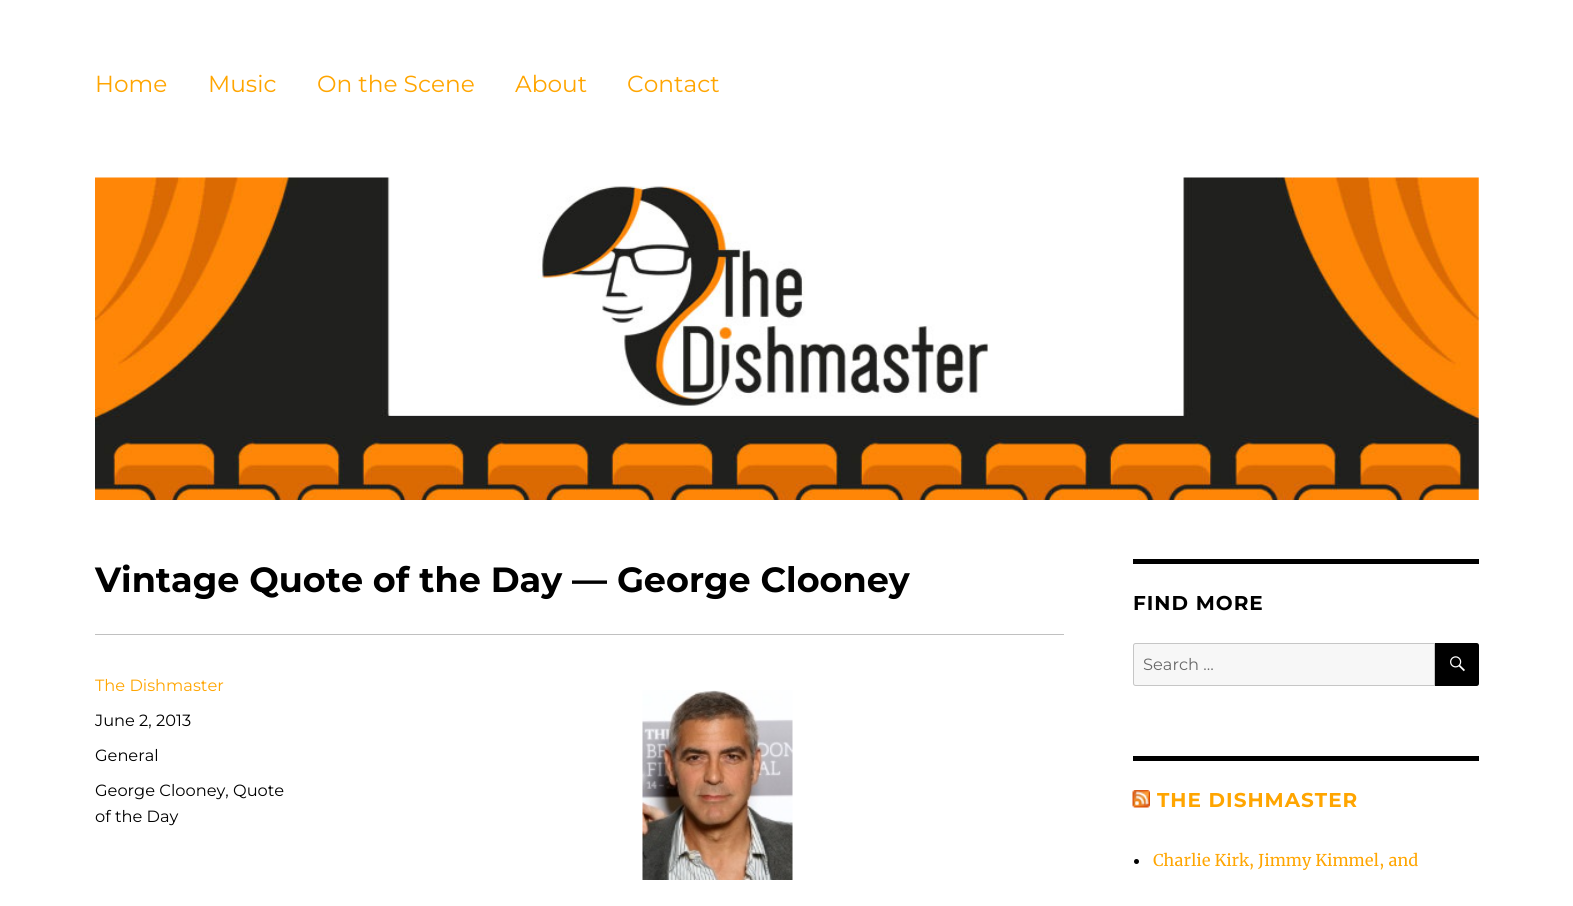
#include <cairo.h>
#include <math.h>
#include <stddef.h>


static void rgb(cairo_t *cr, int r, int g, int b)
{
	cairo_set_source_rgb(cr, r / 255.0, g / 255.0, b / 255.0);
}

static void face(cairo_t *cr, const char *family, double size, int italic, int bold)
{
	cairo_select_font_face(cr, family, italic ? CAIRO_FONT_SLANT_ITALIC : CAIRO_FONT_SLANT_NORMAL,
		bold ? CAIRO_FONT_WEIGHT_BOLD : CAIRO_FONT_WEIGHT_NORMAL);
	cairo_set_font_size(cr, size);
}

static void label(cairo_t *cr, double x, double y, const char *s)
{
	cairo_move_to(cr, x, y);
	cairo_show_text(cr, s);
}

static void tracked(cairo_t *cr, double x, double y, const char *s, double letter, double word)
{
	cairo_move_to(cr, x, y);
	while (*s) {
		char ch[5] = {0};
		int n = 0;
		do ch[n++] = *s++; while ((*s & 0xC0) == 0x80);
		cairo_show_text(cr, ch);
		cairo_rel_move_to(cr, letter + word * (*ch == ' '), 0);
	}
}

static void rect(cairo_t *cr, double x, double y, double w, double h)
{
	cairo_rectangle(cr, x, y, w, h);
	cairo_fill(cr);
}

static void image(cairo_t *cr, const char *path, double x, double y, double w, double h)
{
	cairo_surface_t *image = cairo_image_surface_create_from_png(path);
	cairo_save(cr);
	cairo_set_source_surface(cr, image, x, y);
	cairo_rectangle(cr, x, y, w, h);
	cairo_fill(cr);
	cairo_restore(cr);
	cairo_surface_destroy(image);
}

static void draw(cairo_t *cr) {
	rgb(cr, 255, 255, 255);
	cairo_paint(cr);
	face(cr, "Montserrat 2 Thin", 23.25, 0, 0);
	rgb(cr, 255, 165, 0);
	label(cr, 95, 92, "Home");
	label(cr, 208, 92, "Music");
	label(cr, 317, 92, "On the Scene");
	label(cr, 515, 92, "About");
	label(cr, 627, 92, "Contact");
	image(cr, "image0.png", 95, 177, 1384, 323);
	rgb(cr, 192, 192, 192);
	rect(cr, 95, 634, 969, 1);
	face(cr, "Montserrat Thin", 35, 0, 0);
	rgb(cr, 0, 0, 0);
	label(cr, 95, 592, "Vintage Quote of the Day — George Clooney");
	face(cr, "Montserrat 2 Thin", 16.25, 0, 0);
	rgb(cr, 255, 165, 0);
	label(cr, 95, 691, "The Dishmaster");
	rgb(cr, 0, 0, 0);
	label(cr, 95, 726, "June 2, 2013");
	label(cr, 95, 761, "General");
	label(cr, 95, 796, "George Clooney, Quote");
	label(cr, 95, 822, "of the Day");
	image(cr, "image1.png", 642, 690, 151, 190);
	rect(cr, 1133, 559, 346, 5);
	face(cr, "Montserrat Thin", 20, 0, 0);
	tracked(cr, 1133, 610, "FIND MORE", 1, 0);
	rgb(cr, 247, 247, 247);
	cairo_new_path(cr);
	cairo_move_to(cr, 1135.5, 643.5);
	cairo_line_to(cr, 1434.5, 643.5);
	cairo_line_to(cr, 1434.5, 685.5);
	cairo_line_to(cr, 1135.5, 685.5);
	cairo_curve_to(cr, 1134.5, 685.5, 1133.5, 684.5, 1133.5, 683.5);
	cairo_line_to(cr, 1133.5, 645.5);
	cairo_curve_to(cr, 1133.5, 644.5, 1134.5, 643.5, 1135.5, 643.5);
	cairo_close_path(cr);
	cairo_fill_preserve(cr);
	rgb(cr, 198, 198, 198);
	cairo_set_line_width(cr, 1);
	cairo_stroke(cr);
	face(cr, "Montserrat 2 Thin", 16.25, 0, 0);
	rgb(cr, 104, 104, 104);
	label(cr, 1143, 670, "Search …");
	rgb(cr, 0, 0, 0);
	cairo_new_path(cr);
	cairo_move_to(cr, 1435, 643);
	cairo_line_to(cr, 1476.5, 643);
	cairo_curve_to(cr, 1478, 643, 1479, 644, 1479, 645.5);
	cairo_line_to(cr, 1479, 683.5);
	cairo_curve_to(cr, 1479, 685, 1478, 686, 1476.5, 686);
	cairo_line_to(cr, 1435, 686);
	cairo_close_path(cr);
	cairo_fill(cr);
	image(cr, "image2.png", 1450, 656, 15, 16);
	rect(cr, 1133, 756, 346, 5);
	image(cr, "image3.png", 1132, 790, 18, 18);
	face(cr, "Montserrat Thin", 20, 0, 0);
	rgb(cr, 255, 165, 0);
	tracked(cr, 1157, 807, "THE DISHMASTER", 1, 0);
	rgb(cr, 0, 0, 0);
	cairo_new_path(cr);
	cairo_arc(cr, 1136.5, 861.5, 2.5, 0, 2 * M_PI);
	cairo_fill(cr);
	face(cr, "Merriweather", 16.25, 0, 0);
	rgb(cr, 255, 165, 0);
	label(cr, 1153, 866, "Charlie Kirk, Jimmy Kimmel, and");
}

int main(void) {
	cairo_surface_t *surface = cairo_image_surface_create(CAIRO_FORMAT_RGB24, 1573, 906);
	cairo_t *cr = cairo_create(surface);
	cairo_font_options_t *options = cairo_font_options_create();
	cairo_font_options_set_hint_metrics(options, CAIRO_HINT_METRICS_OFF);
	cairo_font_options_set_hint_style(options, CAIRO_HINT_STYLE_NONE);
	cairo_set_font_options(cr, options);
	cairo_set_miter_limit(cr, 4);
	draw(cr);
	cairo_surface_write_to_png(surface, "render.png");
	cairo_font_options_destroy(options);
	cairo_destroy(cr);
	cairo_surface_destroy(surface);
	return 0;
}
